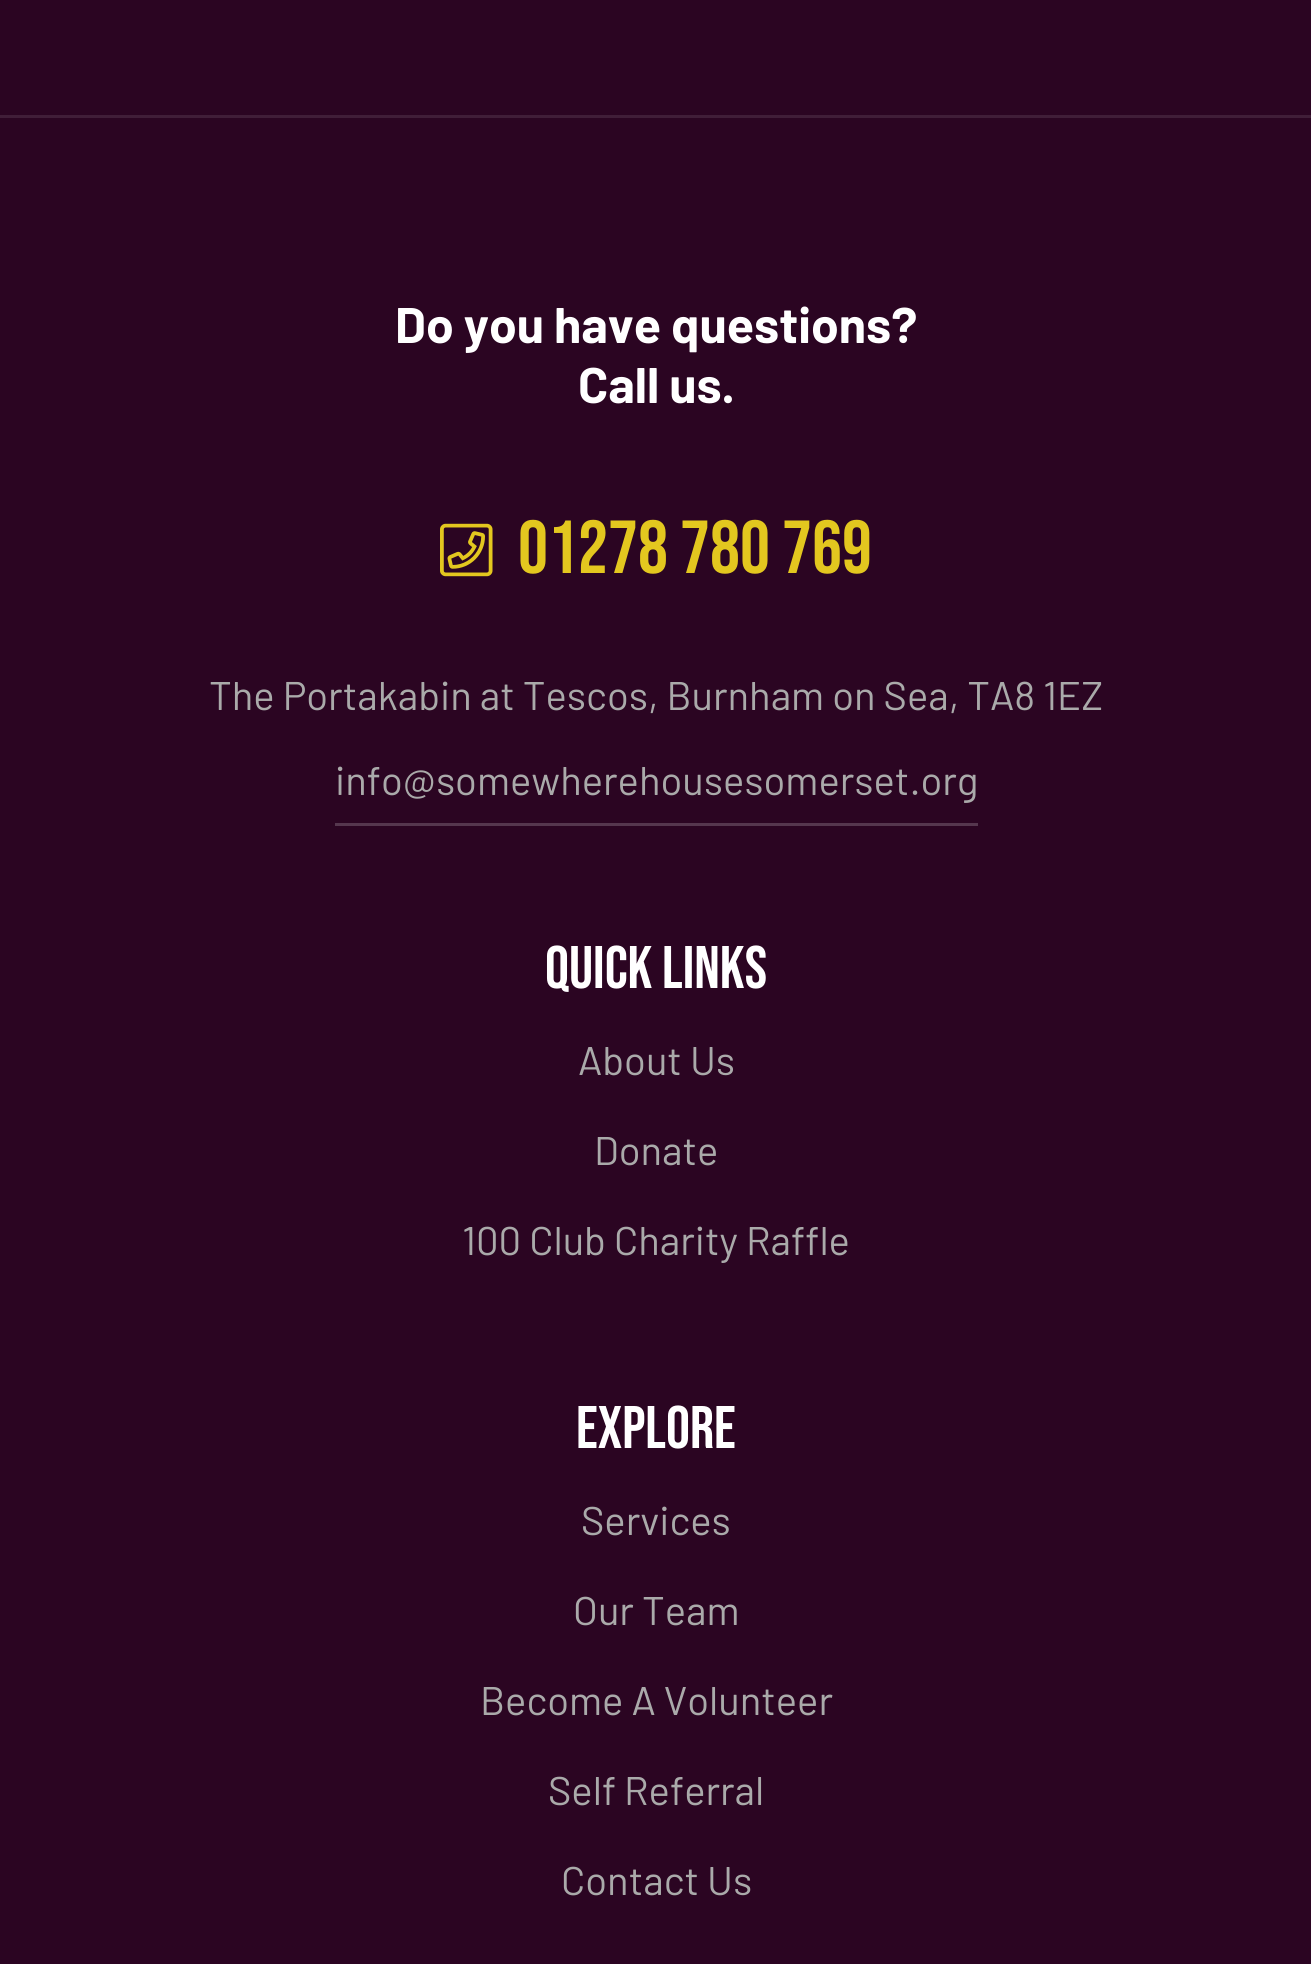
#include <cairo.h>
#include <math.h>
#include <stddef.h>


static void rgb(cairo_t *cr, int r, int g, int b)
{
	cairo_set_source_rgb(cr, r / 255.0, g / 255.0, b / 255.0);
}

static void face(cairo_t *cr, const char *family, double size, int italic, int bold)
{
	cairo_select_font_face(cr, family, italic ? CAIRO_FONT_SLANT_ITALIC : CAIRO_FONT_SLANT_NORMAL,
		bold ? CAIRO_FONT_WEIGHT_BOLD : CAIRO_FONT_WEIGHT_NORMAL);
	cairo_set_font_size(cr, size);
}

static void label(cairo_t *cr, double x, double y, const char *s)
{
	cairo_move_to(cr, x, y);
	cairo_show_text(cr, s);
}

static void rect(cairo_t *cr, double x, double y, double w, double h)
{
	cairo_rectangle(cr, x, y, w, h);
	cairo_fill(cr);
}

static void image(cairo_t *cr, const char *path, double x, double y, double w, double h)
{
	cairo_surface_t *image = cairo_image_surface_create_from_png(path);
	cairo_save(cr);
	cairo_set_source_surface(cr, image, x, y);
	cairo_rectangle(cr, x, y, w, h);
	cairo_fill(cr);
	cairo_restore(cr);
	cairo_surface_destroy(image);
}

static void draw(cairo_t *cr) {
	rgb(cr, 43, 5, 34);
	cairo_paint(cr);
	rgb(cr, 64, 30, 56);
	rect(cr, 0, 115, 1311, 3);
	face(cr, "Barlow", 50, 0, 1);
	rgb(cr, 255, 255, 255);
	label(cr, 395, 343, "Do you have questions?");
	label(cr, 578, 403, "Call us.");
	image(cr, "image0.png", 440, 523, 53, 54);
	face(cr, "Bebas Neue", 75, 0, 0);
	rgb(cr, 227, 199, 31);
	label(cr, 518, 573, "01278 780 769");
	face(cr, "Barlow", 40, 0, 0);
	rgb(cr, 170, 170, 170);
	label(cr, 209, 710, "The Portakabin at Tescos, Burnham on Sea, TA8 1EZ");
	rgb(cr, 85, 55, 78);
	rect(cr, 335, 823, 643, 3);
	rgb(cr, 170, 170, 170);
	label(cr, 335, 795, "info@somewherehousesomerset.org");
	face(cr, "Bebas Neue", 60, 0, 0);
	rgb(cr, 255, 255, 255);
	label(cr, 545, 988, "QUICK LINKS");
	face(cr, "Barlow", 40, 0, 0);
	rgb(cr, 170, 170, 170);
	label(cr, 578, 1075, "About Us");
	label(cr, 594, 1165, "Donate");
	label(cr, 462, 1255, "100 Club Charity Raffle");
	face(cr, "Bebas Neue", 60, 0, 0);
	rgb(cr, 255, 255, 255);
	label(cr, 576, 1448, "EXPLORE");
	face(cr, "Barlow", 40, 0, 0);
	rgb(cr, 170, 170, 170);
	label(cr, 581, 1535, "Services");
	label(cr, 573, 1625, "Our Team");
	label(cr, 480, 1715, "Become A Volunteer");
	label(cr, 548, 1805, "Self Referral");
	label(cr, 561, 1895, "Contact Us");
}

int main(void) {
	cairo_surface_t *surface = cairo_image_surface_create(CAIRO_FORMAT_RGB24, 1311, 1964);
	cairo_t *cr = cairo_create(surface);
	cairo_font_options_t *options = cairo_font_options_create();
	cairo_font_options_set_hint_metrics(options, CAIRO_HINT_METRICS_OFF);
	cairo_font_options_set_hint_style(options, CAIRO_HINT_STYLE_NONE);
	cairo_set_font_options(cr, options);
	cairo_set_miter_limit(cr, 4);
	draw(cr);
	cairo_surface_write_to_png(surface, "render.png");
	cairo_font_options_destroy(options);
	cairo_destroy(cr);
	cairo_surface_destroy(surface);
	return 0;
}
